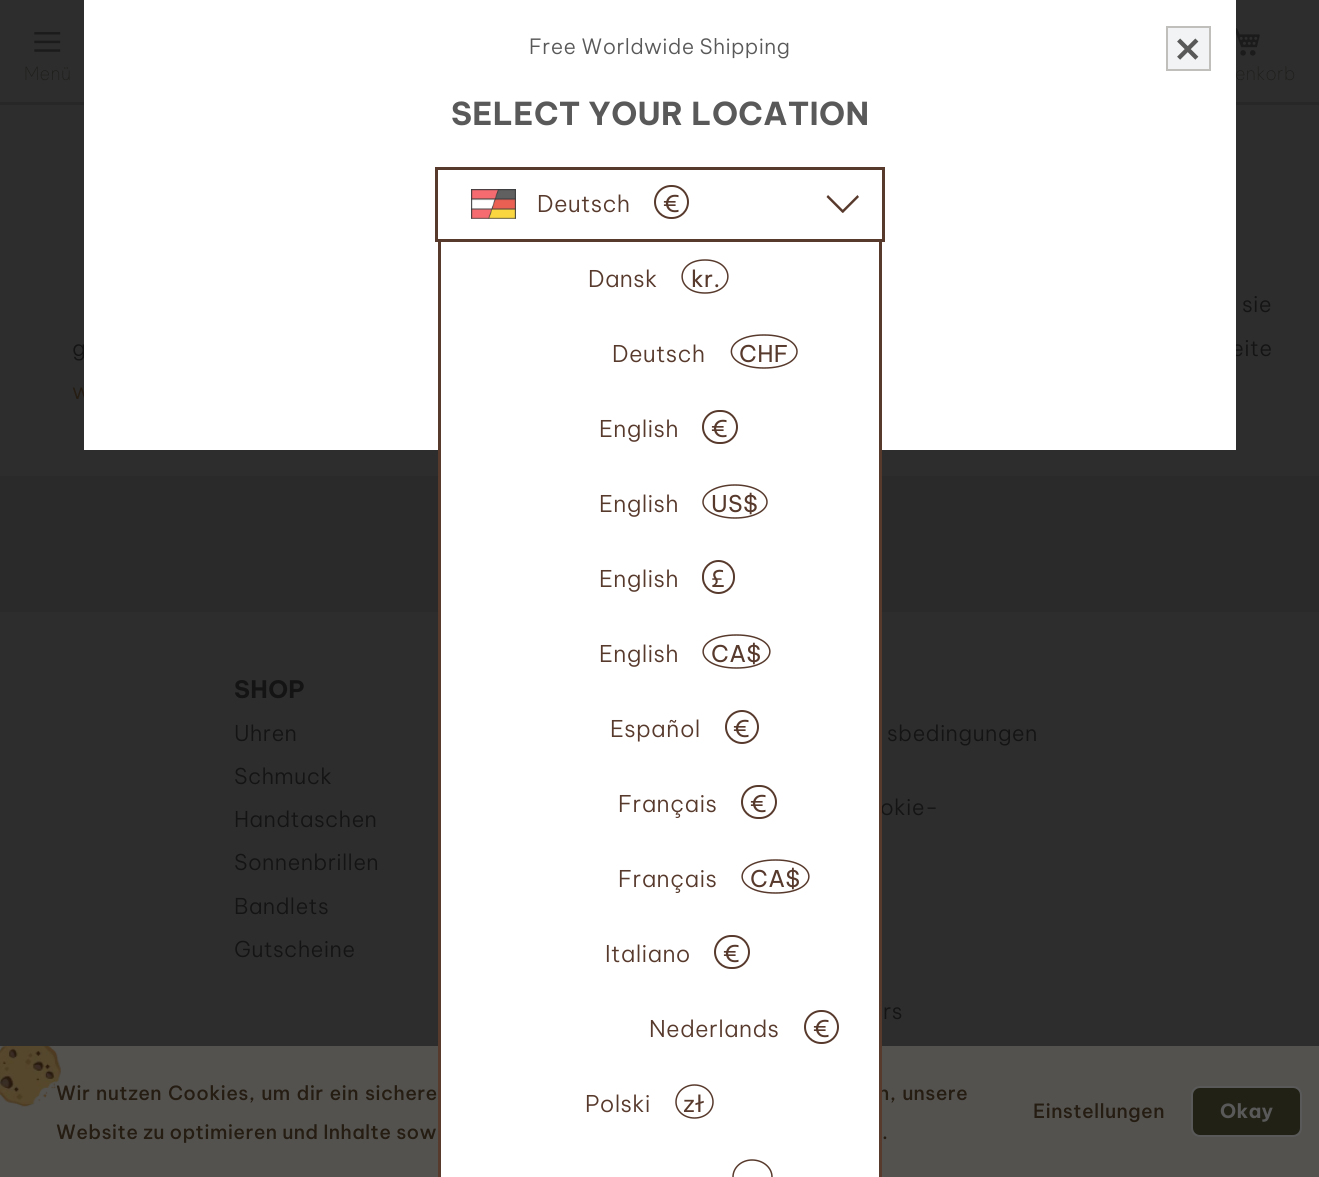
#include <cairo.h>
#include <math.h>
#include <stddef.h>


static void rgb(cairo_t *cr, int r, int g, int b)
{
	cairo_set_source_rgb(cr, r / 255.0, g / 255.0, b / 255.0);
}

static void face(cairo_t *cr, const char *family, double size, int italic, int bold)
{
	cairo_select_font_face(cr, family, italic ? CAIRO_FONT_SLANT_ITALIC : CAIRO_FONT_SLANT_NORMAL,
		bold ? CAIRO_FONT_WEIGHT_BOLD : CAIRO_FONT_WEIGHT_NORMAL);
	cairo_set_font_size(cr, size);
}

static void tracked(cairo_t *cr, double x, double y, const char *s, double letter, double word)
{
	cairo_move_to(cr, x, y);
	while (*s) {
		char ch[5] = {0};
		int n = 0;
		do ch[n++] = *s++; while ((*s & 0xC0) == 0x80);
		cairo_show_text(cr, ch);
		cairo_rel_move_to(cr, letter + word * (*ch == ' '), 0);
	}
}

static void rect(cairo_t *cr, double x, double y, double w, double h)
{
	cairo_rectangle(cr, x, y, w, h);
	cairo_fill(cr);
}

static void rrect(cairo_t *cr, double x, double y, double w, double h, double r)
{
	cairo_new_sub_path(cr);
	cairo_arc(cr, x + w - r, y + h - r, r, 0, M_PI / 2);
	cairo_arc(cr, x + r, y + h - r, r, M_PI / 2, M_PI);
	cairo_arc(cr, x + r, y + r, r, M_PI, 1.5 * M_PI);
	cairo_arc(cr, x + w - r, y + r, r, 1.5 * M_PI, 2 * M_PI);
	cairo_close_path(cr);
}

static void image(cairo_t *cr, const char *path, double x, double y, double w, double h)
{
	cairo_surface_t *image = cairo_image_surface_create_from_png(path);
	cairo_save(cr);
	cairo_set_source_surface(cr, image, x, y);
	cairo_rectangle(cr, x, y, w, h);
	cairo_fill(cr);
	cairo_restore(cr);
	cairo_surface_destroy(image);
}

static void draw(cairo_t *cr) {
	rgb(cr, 45, 45, 45);
	cairo_paint(cr);
	rgb(cr, 39, 39, 39);
	rect(cr, 0, 102, 1319, 3);
	face(cr, "Be Vietnam Pro Light", 21.75, 0, 0);
	rgb(cr, 20, 20, 20);
	tracked(cr, 72, 356, "g", 0.3, 10);
	tracked(cr, 1231, 356, "eite", 0.3, 10);
	rgb(cr, 37, 28, 18);
	tracked(cr, 72, 399, "w", 0.3, 0);
	rgb(cr, 255, 255, 255);
	rect(cr, 84, 0, 1152, 450);
	face(cr, "Be Vietnam Pro Light", 21, 0, 0);
	rgb(cr, 89, 89, 89);
	tracked(cr, 529, 54, "Free Worldwide Shipping", 0.3, 0);
	rgb(cr, 242, 243, 244);
	cairo_rectangle(cr, 1167, 27, 43, 43);
	cairo_fill_preserve(cr);
	rgb(cr, 193, 191, 187);
	cairo_stroke(cr);
	face(cr, "DejaVu Sans", 34, 0, 1);
	rgb(cr, 89, 89, 89);
	tracked(cr, 1173, 62, "✕", 0.3, 0);
	face(cr, "Be Vietnam Pro", 31.5, 0, 1);
	tracked(cr, 451, 125, "SELECT YOUR LOCATION", 0.3, 0);
	rgb(cr, 88, 58, 45);
	rect(cr, 882, 167, 3, 75);
	rect(cr, 435, 167, 3, 75);
	rect(cr, 438, 167, 444, 3);
	rect(cr, 438, 239, 444, 3);
	image(cr, "image0.png", 471, 189, 45, 30);
	face(cr, "Be Vietnam Pro Light", 23, 0, 0);
	tracked(cr, 537, 212, "Deutsch", 0.3, 0);
	rrect(cr, 655, 186, 33, 32, 16);
	cairo_stroke(cr);
	face(cr, "Be Vietnam Pro", 23, 0, 0);
	tracked(cr, 663, 212, "€", 0.3, 0);
	cairo_new_path(cr);
	cairo_move_to(cr, 826.5, 197);
	cairo_line_to(cr, 828, 195);
	cairo_line_to(cr, 844, 211);
	cairo_line_to(cr, 842.5, 213);
	cairo_close_path(cr);
	cairo_fill(cr);
	cairo_new_path(cr);
	cairo_move_to(cr, 857.5, 195);
	cairo_line_to(cr, 859, 197);
	cairo_line_to(cr, 843, 213);
	cairo_line_to(cr, 841.5, 211);
	cairo_close_path(cr);
	cairo_fill(cr);
	rgb(cr, 42, 42, 42);
	rect(cr, 0, 476, 1319, 136);
	rgb(cr, 83, 82, 79);
	rect(cr, 0, 1046, 1319, 131);
	rgb(cr, 255, 255, 255);
	rect(cr, 441, 450, 438, 727);
	face(cr, "Be Vietnam Pro Light", 21.75, 0, 0);
	rgb(cr, 20, 20, 20);
	tracked(cr, 880, 815, "okie-", 0.3, 0);
	face(cr, "Be Vietnam Pro Medium", 19.5, 0, 0);
	rgb(cr, 37, 28, 18);
	tracked(cr, 878, 1100, "n, unsere", 0.3, 1.25);
	rgb(cr, 88, 58, 45);
	rect(cr, 879, 242, 3, 935);
	rect(cr, 438, 242, 3, 935);
	face(cr, "Be Vietnam Pro Light", 23, 0, 0);
	tracked(cr, 588, 287, "Dansk", 0.3, 0);
	cairo_new_path(cr);
	cairo_move_to(cr, 705, 260);
	cairo_curve_to(cr, 735.5, 260, 735.5, 293, 705, 293);
	cairo_curve_to(cr, 674.5, 293, 674.5, 260, 705, 260);
	cairo_close_path(cr);
	cairo_set_line_width(cr, 1.5);
	cairo_stroke(cr);
	face(cr, "Be Vietnam Pro", 23, 0, 0);
	tracked(cr, 691, 287, "kr.", 0.3, 0);
	face(cr, "Be Vietnam Pro Light", 23, 0, 0);
	tracked(cr, 612, 362, "Deutsch", 0.3, 0);
	cairo_new_path(cr);
	cairo_move_to(cr, 764, 335);
	cairo_curve_to(cr, 808, 335, 808, 368, 764, 368);
	cairo_curve_to(cr, 720.5, 368, 720.5, 335, 764, 335);
	cairo_close_path(cr);
	cairo_stroke(cr);
	face(cr, "Be Vietnam Pro", 23, 0, 0);
	tracked(cr, 739, 362, "CHF", 0.3, 0);
	face(cr, "Be Vietnam Pro Light", 23, 0, 0);
	tracked(cr, 599, 437, "English", 0.3, 0);
	rrect(cr, 703, 411, 34, 32, 16);
	cairo_set_line_width(cr, 2);
	cairo_stroke(cr);
	face(cr, "Be Vietnam Pro", 23, 0, 0);
	tracked(cr, 711, 437, "€", 0.3, 0);
	face(cr, "Be Vietnam Pro Light", 23, 0, 0);
	tracked(cr, 599, 512, "English", 0.3, 0);
	cairo_new_path(cr);
	cairo_move_to(cr, 735, 485);
	cairo_curve_to(cr, 753, 485, 767, 492.5, 767, 502);
	cairo_curve_to(cr, 767, 511, 753, 518, 735, 518);
	cairo_curve_to(cr, 717, 518, 703, 511, 703, 502);
	cairo_curve_to(cr, 703, 492.5, 717, 485, 735, 485);
	cairo_close_path(cr);
	cairo_set_line_width(cr, 1.5);
	cairo_stroke(cr);
	face(cr, "Be Vietnam Pro", 23, 0, 0);
	tracked(cr, 711, 512, "US$", 0.3, 0);
	face(cr, "Be Vietnam Pro Light", 23, 0, 0);
	tracked(cr, 599, 587, "English", 0.3, 0);
	rrect(cr, 703, 561, 31, 32, 15.5);
	cairo_set_line_width(cr, 2);
	cairo_stroke(cr);
	face(cr, "Be Vietnam Pro", 23, 0, 0);
	tracked(cr, 711, 587, "£", 0.3, 0);
	face(cr, "Be Vietnam Pro Light", 23, 0, 0);
	tracked(cr, 599, 662, "English", 0.3, 0);
	cairo_new_path(cr);
	cairo_move_to(cr, 736.5, 635);
	cairo_curve_to(cr, 781, 635, 781, 668, 736.5, 668);
	cairo_curve_to(cr, 692, 668, 692, 635, 736.5, 635);
	cairo_close_path(cr);
	cairo_set_line_width(cr, 1.5);
	cairo_stroke(cr);
	face(cr, "Be Vietnam Pro", 23, 0, 0);
	tracked(cr, 711, 662, "CA$", 0.3, 0);
	face(cr, "Be Vietnam Pro Light", 23, 0, 0);
	tracked(cr, 610, 737, "Español", 0.3, 0);
	cairo_new_path(cr);
	cairo_arc(cr, 742, 727, 16, 0, 2 * M_PI);
	cairo_set_line_width(cr, 2);
	cairo_stroke(cr);
	face(cr, "Be Vietnam Pro", 23, 0, 0);
	tracked(cr, 733, 737, "€", 0.3, 0);
	face(cr, "Be Vietnam Pro Light", 23, 0, 0);
	tracked(cr, 618, 812, "Français", 0.3, 0);
	rrect(cr, 742, 786, 34, 32, 16);
	cairo_stroke(cr);
	face(cr, "Be Vietnam Pro", 23, 0, 0);
	tracked(cr, 750, 812, "€", 0.3, 0);
	face(cr, "Be Vietnam Pro Light", 23, 0, 0);
	tracked(cr, 618, 887, "Français", 0.3, 0);
	cairo_new_path(cr);
	cairo_move_to(cr, 775.5, 860);
	cairo_curve_to(cr, 820, 860, 820, 893, 775.5, 893);
	cairo_curve_to(cr, 731, 893, 731, 860, 775.5, 860);
	cairo_close_path(cr);
	cairo_set_line_width(cr, 1.5);
	cairo_stroke(cr);
	face(cr, "Be Vietnam Pro", 23, 0, 0);
	tracked(cr, 750, 887, "CA$", 0.3, 0);
	face(cr, "Be Vietnam Pro Light", 23, 0, 0);
	tracked(cr, 605, 962, "Italiano", 0.3, 0);
	rrect(cr, 715, 936, 34, 32, 16);
	cairo_set_line_width(cr, 2);
	cairo_stroke(cr);
	face(cr, "Be Vietnam Pro", 23, 0, 0);
	tracked(cr, 723, 962, "€", 0.3, 0);
	face(cr, "Be Vietnam Pro Light", 23, 0, 0);
	tracked(cr, 649, 1037, "Nederlands", 0.3, 0);
	rrect(cr, 805, 1011, 33, 32, 16);
	cairo_stroke(cr);
	face(cr, "Be Vietnam Pro", 23, 0, 0);
	tracked(cr, 813, 1037, "€", 0.3, 0);
	face(cr, "Be Vietnam Pro Light", 23, 0, 0);
	tracked(cr, 585, 1112, "Polski", 0.3, 0);
	cairo_new_path(cr);
	cairo_move_to(cr, 694.5, 1085);
	cairo_curve_to(cr, 705, 1085, 713, 1092.5, 713, 1102);
	cairo_curve_to(cr, 713, 1111, 705, 1118, 694.5, 1118);
	cairo_curve_to(cr, 684, 1118, 676, 1111, 676, 1102);
	cairo_curve_to(cr, 676, 1092.5, 684, 1085, 694.5, 1085);
	cairo_close_path(cr);
	cairo_set_line_width(cr, 1.5);
	cairo_stroke(cr);
	face(cr, "Be Vietnam Pro", 23, 0, 0);
	tracked(cr, 683, 1112, "zł", 0.3, 0);
	cairo_new_path(cr);
	cairo_move_to(cr, 752, 1160);
	cairo_curve_to(cr, 763, 1160, 772, 1167.5, 772, 1177);
	cairo_curve_to(cr, 772, 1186, 763, 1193, 752, 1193);
	cairo_curve_to(cr, 741.5, 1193, 733, 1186, 733, 1177);
	cairo_curve_to(cr, 733, 1167.5, 741.5, 1160, 752, 1160);
	cairo_close_path(cr);
	cairo_stroke(cr);
	image(cr, "image1.png", 34, 32, 27, 20);
	face(cr, "Be Vietnam Pro Thin", 18, 0, 0);
	rgb(cr, 28, 28, 25);
	tracked(cr, 24, 80, "Menü", 0.3, 0);
	image(cr, "image2.png", 1236, 28, 24, 28);
	tracked(cr, 1235, 80, "enkorb", 0.3, 0);
	face(cr, "Be Vietnam Pro Light", 21.75, 0, 0);
	rgb(cr, 20, 20, 20);
	tracked(cr, 1242, 312, "sie", 0.3, 1);
	face(cr, "Be Vietnam Pro", 24, 0, 1);
	tracked(cr, 234, 698, "SHOP", 0.3, 0);
	face(cr, "Be Vietnam Pro Light", 21.75, 0, 0);
	tracked(cr, 234, 741, "Uhren", 0.3, 0);
	tracked(cr, 234, 784, "Schmuck", 0.3, 0);
	tracked(cr, 234, 827, "Handtaschen", 0.3, 0);
	tracked(cr, 234, 870, "Sonnenbrillen", 0.3, 0);
	tracked(cr, 234, 914, "Bandlets", 0.3, 0);
	tracked(cr, 234, 957, "Gutscheine", 0.3, 0);
	tracked(cr, 887, 741, "sbedingungen", 0.3, 0);
	tracked(cr, 883, 1019, "rs", 0.3, 0);
	image(cr, "image3.png", 0, 1046, 61, 61);
	face(cr, "Be Vietnam Pro Medium", 19.5, 0, 0);
	rgb(cr, 37, 28, 18);
	tracked(cr, 56, 1100, "Wir nutzen Cookies, um dir ein sichere", 0.3, 1.25);
	tracked(cr, 56, 1139, "Website zu optimieren und Inhalte sow", 0.3, 0);
	tracked(cr, 882, 1139, ".", 0.3, 0);
	tracked(cr, 1033, 1118, "Einstellungen", 0.3, 0);
	rgb(cr, 33, 33, 22);
	rrect(cr, 1192, 1087, 109, 49, 8);
	cairo_fill_preserve(cr);
	rgb(cr, 89, 89, 89);
	cairo_set_line_width(cr, 2);
	cairo_stroke(cr);
	face(cr, "Be Vietnam Pro", 19.5, 0, 1);
	tracked(cr, 1220, 1118, "Okay", 0.3, 0);
}

int main(void) {
	cairo_surface_t *surface = cairo_image_surface_create(CAIRO_FORMAT_RGB24, 1319, 1177);
	cairo_t *cr = cairo_create(surface);
	cairo_font_options_t *options = cairo_font_options_create();
	cairo_font_options_set_hint_metrics(options, CAIRO_HINT_METRICS_OFF);
	cairo_font_options_set_hint_style(options, CAIRO_HINT_STYLE_NONE);
	cairo_set_font_options(cr, options);
	cairo_set_miter_limit(cr, 4);
	draw(cr);
	cairo_surface_write_to_png(surface, "render.png");
	cairo_font_options_destroy(options);
	cairo_destroy(cr);
	cairo_surface_destroy(surface);
	return 0;
}
